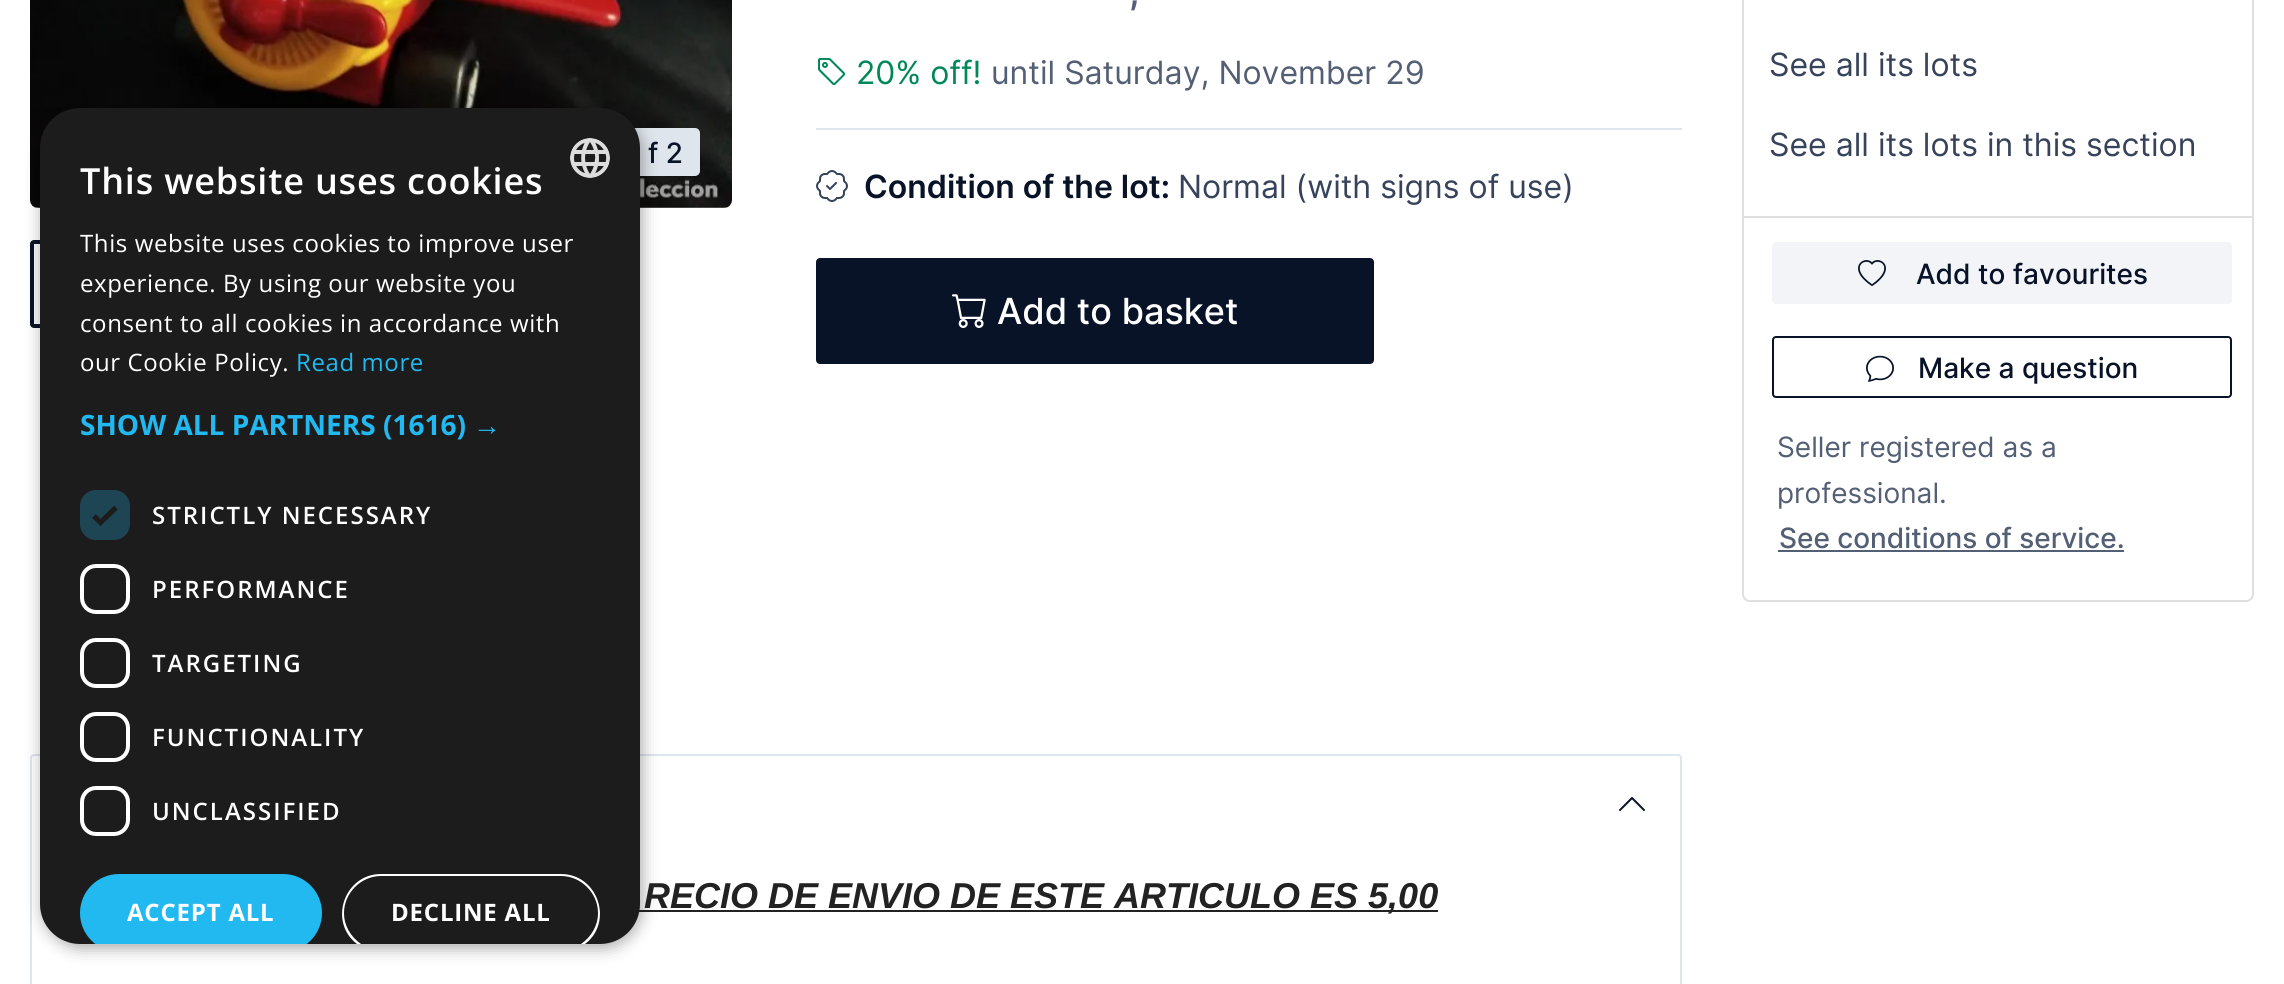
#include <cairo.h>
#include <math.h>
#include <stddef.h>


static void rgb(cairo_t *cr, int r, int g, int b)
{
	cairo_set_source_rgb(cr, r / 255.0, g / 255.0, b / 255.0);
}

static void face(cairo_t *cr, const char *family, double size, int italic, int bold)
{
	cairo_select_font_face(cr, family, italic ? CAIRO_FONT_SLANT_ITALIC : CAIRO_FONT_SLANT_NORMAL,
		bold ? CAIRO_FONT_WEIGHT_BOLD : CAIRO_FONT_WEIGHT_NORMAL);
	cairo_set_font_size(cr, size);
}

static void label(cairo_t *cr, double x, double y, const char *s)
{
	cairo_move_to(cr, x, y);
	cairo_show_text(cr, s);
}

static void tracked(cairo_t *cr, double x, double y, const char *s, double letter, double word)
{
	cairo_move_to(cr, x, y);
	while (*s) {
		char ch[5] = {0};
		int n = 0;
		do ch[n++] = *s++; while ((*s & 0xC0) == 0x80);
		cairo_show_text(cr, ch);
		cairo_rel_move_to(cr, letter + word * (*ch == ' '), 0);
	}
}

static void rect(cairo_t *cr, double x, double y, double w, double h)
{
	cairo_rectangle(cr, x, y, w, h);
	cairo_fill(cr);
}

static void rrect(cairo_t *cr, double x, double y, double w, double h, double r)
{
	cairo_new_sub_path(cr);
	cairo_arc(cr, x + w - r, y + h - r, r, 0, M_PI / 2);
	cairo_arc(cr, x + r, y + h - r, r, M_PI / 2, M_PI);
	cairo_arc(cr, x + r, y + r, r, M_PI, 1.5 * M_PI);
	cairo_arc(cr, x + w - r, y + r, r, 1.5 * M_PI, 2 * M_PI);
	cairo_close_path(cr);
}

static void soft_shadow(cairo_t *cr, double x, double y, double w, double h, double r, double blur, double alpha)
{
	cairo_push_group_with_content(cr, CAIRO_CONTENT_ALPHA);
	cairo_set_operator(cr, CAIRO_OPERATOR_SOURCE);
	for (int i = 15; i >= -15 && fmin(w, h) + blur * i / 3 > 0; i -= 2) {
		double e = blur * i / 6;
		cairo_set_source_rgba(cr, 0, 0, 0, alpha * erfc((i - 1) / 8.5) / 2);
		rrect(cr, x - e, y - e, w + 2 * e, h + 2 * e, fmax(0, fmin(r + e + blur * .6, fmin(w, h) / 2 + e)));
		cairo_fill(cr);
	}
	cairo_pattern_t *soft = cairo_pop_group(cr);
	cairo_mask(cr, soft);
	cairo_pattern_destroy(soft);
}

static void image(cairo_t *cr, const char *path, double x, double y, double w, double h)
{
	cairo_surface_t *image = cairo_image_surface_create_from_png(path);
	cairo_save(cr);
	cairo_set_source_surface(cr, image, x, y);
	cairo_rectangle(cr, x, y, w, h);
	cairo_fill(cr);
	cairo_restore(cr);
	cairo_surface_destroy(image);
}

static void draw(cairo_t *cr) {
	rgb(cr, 255, 255, 255);
	cairo_paint(cr);
	rgb(cr, 248, 249, 252);
	rrect(cr, 30, -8, 702, 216, 8);
	cairo_fill(cr);
	image(cr, "image1.png", 30, 0, 702, 208);
	rgb(cr, 223, 229, 236);
	rrect(cr, 595, 129, 104, 46, 4);
	cairo_fill_preserve(cr);
	cairo_stroke(cr);
	rgb(cr, 248, 249, 252);
	rrect(cr, 32, 242, 162, 84, 2);
	cairo_fill_preserve(cr);
	rgb(cr, 8, 19, 39);
	cairo_set_line_width(cr, 4);
	cairo_stroke(cr);
	rrect(cr, 31, 755, 1650, 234, 3);
	rgb(cr, 223, 229, 236);
	cairo_set_line_width(cr, 2);
	cairo_stroke(cr);
	rgb(cr, 34, 34, 34);
	rect(cr, 639, 910, 799, 2);
	rgb(cr, 0, 0, 0);
	soft_shadow(cr, 42, 112, 600, 836, 40, 8, 0.35);
	rgb(cr, 28, 28, 28);
	rrect(cr, 40, 108, 600, 836, 40);
	cairo_fill(cr);
	face(cr, "Open Sans SemiBold", 36, 0, 0);
	rgb(cr, 255, 255, 255);
	tracked(cr, 80, 194, "This website uses cookies", 0.8, 0);
	image(cr, "image0.png", 570, 138, 40, 40);
	face(cr, "Open Sans", 24, 0, 0);
	tracked(cr, 80, 252, "This website uses cookies to improve user", 0.6, 0);
	tracked(cr, 80, 292, "experience. By using our website you", 0.6, 0);
	tracked(cr, 80, 332, "consent to all cookies in accordance with", 0.6, 0);
	tracked(cr, 80, 371, "our Cookie Policy.", 0.6, 0);
	rgb(cr, 34, 184, 240);
	tracked(cr, 296, 371, "Read more", 0.6, 0);
	face(cr, "Open Sans", 28, 0, 1);
	label(cr, 80, 435, "SHOW ALL PARTNERS (1616)");
	face(cr, "Liberation Sans", 28, 0, 1);
	label(cr, 473, 435, "→");
	rgb(cr, 30, 69, 83);
	rrect(cr, 80, 490, 50, 50, 16);
	cairo_fill(cr);
	cairo_new_path(cr);
	cairo_move_to(cr, 94, 516);
	cairo_line_to(cr, 100.5, 522.5);
	cairo_line_to(cr, 116, 507.5);
	rgb(cr, 28, 28, 28);
	cairo_set_line_width(cr, 5.2);
	cairo_stroke(cr);
	face(cr, "Open Sans SemiBold", 24, 0, 0);
	rgb(cr, 255, 255, 255);
	tracked(cr, 152, 524, "STRICTLY NECESSARY", 2, 0);
	rrect(cr, 82, 566, 46, 46, 14);
	cairo_set_line_width(cr, 4);
	cairo_stroke(cr);
	tracked(cr, 152, 598, "PERFORMANCE", 2, 0);
	rrect(cr, 82, 640, 46, 46, 14);
	cairo_stroke(cr);
	tracked(cr, 152, 672, "TARGETING", 2, 0);
	rrect(cr, 82, 714, 46, 46, 14);
	cairo_stroke(cr);
	tracked(cr, 152, 746, "FUNCTIONALITY", 2, 0);
	rrect(cr, 82, 788, 46, 46, 14);
	cairo_stroke(cr);
	tracked(cr, 152, 820, "UNCLASSIFIED", 2, 0);
	cairo_save(cr);
	rrect(cr, 40, 108, 600, 836, 40);
	cairo_clip(cr);
	rgb(cr, 34, 184, 240);
	rrect(cr, 80, 874, 242, 78, 39);
	cairo_fill(cr);
	cairo_restore(cr);
	face(cr, "Open Sans", 24, 0, 1);
	tracked(cr, 127, 921, "ACCEPT ALL", 0.8, 0);
	cairo_new_path(cr);
	cairo_move_to(cr, 381, 874);
	cairo_curve_to(cr, 344, 874, 328, 922, 357, 944);
	cairo_line_to(cr, 361, 944);
	cairo_curve_to(cr, 351, 937, 344, 926, 344, 913);
	cairo_curve_to(cr, 344, 893, 361, 876, 381, 876);
	cairo_line_to(cr, 561, 876);
	cairo_curve_to(cr, 581, 876, 598, 893, 598, 913);
	cairo_curve_to(cr, 598, 926, 591, 937, 581, 944);
	cairo_line_to(cr, 585, 944);
	cairo_curve_to(cr, 614, 922, 598, 874, 561, 874);
	cairo_close_path(cr);
	cairo_fill(cr);
	tracked(cr, 391, 921, "DECLINE ALL", 0.8, 0);
	face(cr, "Inter Medium", 28, 0, 0);
	rgb(cr, 8, 19, 39);
	label(cr, 648, 163, "f 2");
	face(cr, "Inter SemiBold", 36, 0, 0);
	rgb(cr, 83, 95, 116);
	label(cr, 1129, 4, ",");
	image(cr, "image2.png", 818, 58, 28, 28);
	face(cr, "Inter", 32, 0, 0);
	rgb(cr, 0, 136, 87);
	label(cr, 856, 84, "20% off!");
	rgb(cr, 83, 95, 116);
	label(cr, 991, 84, "until Saturday, November 29");
	rgb(cr, 223, 229, 236);
	rect(cr, 816, 128, 866, 2);
	image(cr, "image3.png", 816, 170, 32, 32);
	face(cr, "Inter SemiBold", 32, 0, 0);
	rgb(cr, 8, 19, 39);
	label(cr, 864, 198, "Condition of the lot:");
	face(cr, "Inter", 32, 0, 0);
	rgb(cr, 54, 67, 90);
	label(cr, 1178, 198, "Normal (with signs of use)");
	rgb(cr, 8, 19, 39);
	rrect(cr, 817, 259, 556, 104, 3);
	cairo_fill_preserve(cr);
	cairo_set_line_width(cr, 2);
	cairo_stroke(cr);
	image(cr, "image4.png", 952, 294, 34, 34);
	face(cr, "Inter Medium", 36, 0, 0);
	rgb(cr, 255, 255, 255);
	label(cr, 997, 324, "Add to basket");
	rrect(cr, 1743, -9, 510, 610, 7);
	rgb(cr, 223, 223, 223);
	cairo_stroke(cr);
	face(cr, "Inter", 32, 0, 0);
	rgb(cr, 54, 67, 90);
	label(cr, 1769, 76, "See all its lots");
	label(cr, 1769, 156, "See all its lots in this section");
	rgb(cr, 223, 223, 223);
	rect(cr, 1744, 216, 508, 2);
	rgb(cr, 242, 244, 248);
	rrect(cr, 1773, 243, 458, 60, 3);
	cairo_fill_preserve(cr);
	cairo_stroke(cr);
	image(cr, "image5.png", 1858, 260, 28, 27);
	face(cr, "Inter Medium", 28, 0, 0);
	rgb(cr, 8, 19, 39);
	label(cr, 1916, 284, "Add to favourites");
	rrect(cr, 1773, 337, 458, 60, 3);
	cairo_stroke(cr);
	image(cr, "image6.png", 1866, 355, 28, 27);
	label(cr, 1918, 378, "Make a question");
	face(cr, "Inter", 28, 0, 0);
	rgb(cr, 83, 95, 116);
	label(cr, 1777, 457, "Seller registered as a");
	label(cr, 1777, 503, "professional.");
	face(cr, "Inter Medium", 28, 0, 0);
	label(cr, 1779, 548, "See conditions of service.");
	rect(cr, 1778, 550, 346, 2);
	image(cr, "image7.png", 1619, 797, 26, 14);
	face(cr, "Liberation Sans", 36, 1, 1);
	rgb(cr, 34, 34, 34);
	label(cr, 644, 908, "RECIO DE ENVIO DE ESTE ARTICULO ES 5,00");
}

int main(void) {
	cairo_surface_t *surface = cairo_image_surface_create(CAIRO_FORMAT_RGB24, 2284, 984);
	cairo_t *cr = cairo_create(surface);
	cairo_font_options_t *options = cairo_font_options_create();
	cairo_font_options_set_hint_metrics(options, CAIRO_HINT_METRICS_OFF);
	cairo_font_options_set_hint_style(options, CAIRO_HINT_STYLE_NONE);
	cairo_set_font_options(cr, options);
	cairo_set_miter_limit(cr, 4);
	draw(cr);
	cairo_surface_write_to_png(surface, "render.png");
	cairo_font_options_destroy(options);
	cairo_destroy(cr);
	cairo_surface_destroy(surface);
	return 0;
}
